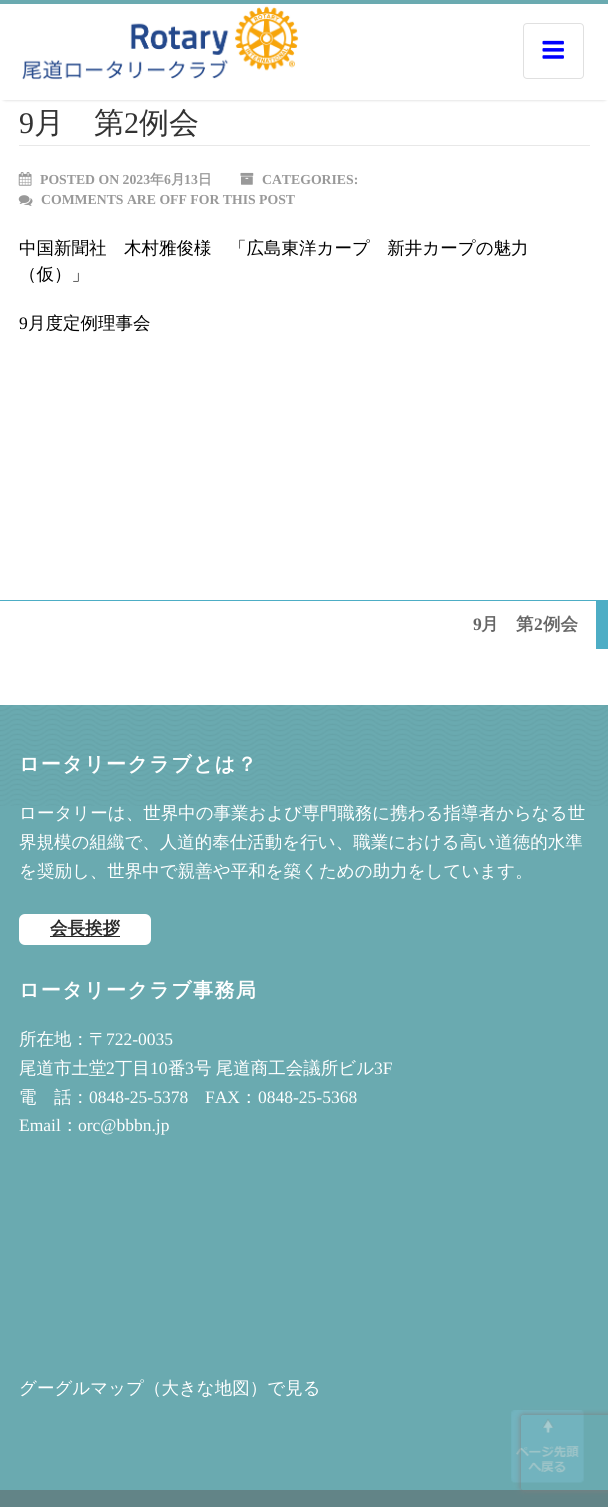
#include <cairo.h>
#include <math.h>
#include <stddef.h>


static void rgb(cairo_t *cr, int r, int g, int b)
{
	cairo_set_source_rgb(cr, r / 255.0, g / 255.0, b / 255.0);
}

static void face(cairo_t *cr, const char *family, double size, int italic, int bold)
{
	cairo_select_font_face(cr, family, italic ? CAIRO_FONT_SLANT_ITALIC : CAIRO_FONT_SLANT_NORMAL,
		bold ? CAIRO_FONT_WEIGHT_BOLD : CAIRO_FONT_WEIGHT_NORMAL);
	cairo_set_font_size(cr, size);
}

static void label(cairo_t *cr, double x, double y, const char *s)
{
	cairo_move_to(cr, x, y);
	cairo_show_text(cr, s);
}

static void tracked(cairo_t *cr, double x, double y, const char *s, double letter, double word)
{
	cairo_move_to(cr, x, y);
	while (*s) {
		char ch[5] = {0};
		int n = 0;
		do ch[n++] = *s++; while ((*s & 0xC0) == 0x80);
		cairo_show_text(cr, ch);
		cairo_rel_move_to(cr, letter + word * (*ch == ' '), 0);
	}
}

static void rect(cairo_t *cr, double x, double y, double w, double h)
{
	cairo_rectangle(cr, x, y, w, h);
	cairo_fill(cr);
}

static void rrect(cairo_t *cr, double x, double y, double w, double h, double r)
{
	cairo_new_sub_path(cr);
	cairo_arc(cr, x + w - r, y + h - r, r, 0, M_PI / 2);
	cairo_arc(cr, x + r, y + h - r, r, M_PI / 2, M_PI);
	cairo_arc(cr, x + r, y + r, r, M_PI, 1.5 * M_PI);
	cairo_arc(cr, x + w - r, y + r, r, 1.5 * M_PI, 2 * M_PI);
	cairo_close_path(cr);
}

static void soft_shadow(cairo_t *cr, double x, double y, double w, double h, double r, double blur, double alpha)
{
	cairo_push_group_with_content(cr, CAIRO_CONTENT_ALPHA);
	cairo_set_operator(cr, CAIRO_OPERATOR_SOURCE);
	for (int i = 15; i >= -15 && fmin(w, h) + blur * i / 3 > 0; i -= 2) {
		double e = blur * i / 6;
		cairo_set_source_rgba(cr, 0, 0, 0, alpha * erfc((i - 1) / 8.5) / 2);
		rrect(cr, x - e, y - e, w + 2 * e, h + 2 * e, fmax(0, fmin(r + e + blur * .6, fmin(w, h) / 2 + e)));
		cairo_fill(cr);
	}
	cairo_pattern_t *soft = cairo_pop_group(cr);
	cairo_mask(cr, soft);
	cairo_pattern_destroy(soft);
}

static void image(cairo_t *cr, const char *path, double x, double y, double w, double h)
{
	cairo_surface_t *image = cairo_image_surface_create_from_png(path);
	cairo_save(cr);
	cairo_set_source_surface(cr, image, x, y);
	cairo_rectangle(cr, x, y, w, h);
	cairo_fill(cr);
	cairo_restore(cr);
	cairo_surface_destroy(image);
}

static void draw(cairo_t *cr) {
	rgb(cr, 255, 255, 255);
	cairo_paint(cr);
	rgb(cr, 0, 0, 0);
	soft_shadow(cr, 0, 1, 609, 100, 6, 1, 0.1);
	rgb(cr, 255, 255, 255);
	rect(cr, 0, 4, 608, 96);
	rgb(cr, 106, 170, 176);
	rect(cr, 0, 0, 608, 4);
	image(cr, "image0.png", 22, 6, 277, 74);
	rrect(cr, 523.5, 23.5, 60, 55, 3.5);
	rgb(cr, 224, 224, 224);
	cairo_set_line_width(cr, 1);
	cairo_stroke(cr);
	image(cr, "image1.png", 542, 40, 22, 19);
	rgb(cr, 232, 232, 232);
	rect(cr, 19, 145, 571, 1);
	face(cr, "Liberation Serif", 30, 0, 0);
	rgb(cr, 51, 51, 51);
	label(cr, 19, 133, "9");
	face(cr, "WenQuanYi Zen Hei Medium", 30, 0, 0);
	label(cr, 34, 133, "月　第");
	face(cr, "Liberation Serif", 30, 0, 0);
	label(cr, 124, 133, "2");
	face(cr, "WenQuanYi Zen Hei Medium", 30, 0, 0);
	label(cr, 139, 133, "例会");
	image(cr, "image2.png", 18, 172, 14, 14);
	face(cr, "Liberation Serif", 13.75, 0, 1);
	rgb(cr, 153, 153, 153);
	label(cr, 40, 184, "POSTED ON 2023");
	face(cr, "WenQuanYi Zen Hei", 13.75, 0, 1);
	label(cr, 150, 184, "年");
	face(cr, "Liberation Serif", 13.75, 0, 1);
	label(cr, 164, 184, "6");
	face(cr, "WenQuanYi Zen Hei", 13.75, 0, 1);
	label(cr, 171, 184, "月");
	face(cr, "Liberation Serif", 13.75, 0, 1);
	label(cr, 184, 184, "13");
	face(cr, "WenQuanYi Zen Hei", 13.75, 0, 1);
	label(cr, 198, 184, "日");
	image(cr, "image3.png", 240, 172, 14, 13);
	face(cr, "Liberation Serif", 13.75, 0, 1);
	label(cr, 262, 184, "CATEGORIES:");
	image(cr, "image4.png", 18, 195, 15, 11);
	label(cr, 41, 204, "COMMENTS ARE OFF FOR THIS POST");
	face(cr, "WenQuanYi Zen Hei Medium", 17.5, 0, 0);
	rgb(cr, 0, 0, 0);
	label(cr, 19, 254, "中国新聞社　木村雅俊様　「広島東洋カープ　新井カープの魅力");
	label(cr, 19, 280, "（仮）」");
	face(cr, "Liberation Serif", 17.5, 0, 0);
	label(cr, 19, 329, "9");
	face(cr, "WenQuanYi Zen Hei Medium", 17.5, 0, 0);
	label(cr, 28, 329, "月度定例理事会");
	rgb(cr, 77, 173, 197);
	rect(cr, 0, 600, 608, 1);
	rect(cr, 596, 601, 12, 48);
	face(cr, "Liberation Serif", 17.5, 0, 1);
	rgb(cr, 102, 102, 102);
	label(cr, 473, 630, "9");
	face(cr, "WenQuanYi Zen Hei", 17.5, 0, 1);
	label(cr, 481, 630, "月　第");
	face(cr, "Liberation Serif", 17.5, 0, 1);
	label(cr, 534, 630, "2");
	face(cr, "WenQuanYi Zen Hei", 17.5, 0, 1);
	label(cr, 543, 630, "例会");
	rgb(cr, 106, 170, 176);
	rect(cr, 0, 705, 608, 785);
	image(cr, "image5.png", 0, 705, 608, 101);
	face(cr, "WenQuanYi Zen Hei", 20, 0, 1);
	rgb(cr, 255, 255, 255);
	tracked(cr, 19, 771, "ロータリークラブとは？", 1.4, 0);
	face(cr, "WenQuanYi Zen Hei Medium", 17.5, 0, 0);
	label(cr, 19, 819, "ロータリーは、世界中の事業および専門職務に携わる指導者からなる世");
	label(cr, 19, 848, "界規模の組織で、人道的奉仕活動を行い、職業における高い道徳的水準");
	label(cr, 19, 877, "を奨励し、世界中で親善や平和を築くための助力をしています。");
	rrect(cr, 19, 914, 132, 31, 6);
	cairo_fill(cr);
	rgb(cr, 41, 41, 41);
	rect(cr, 50, 936, 70, 1);
	face(cr, "WenQuanYi Zen Hei", 17.5, 0, 1);
	label(cr, 50, 934, "会長挨拶");
	face(cr, "WenQuanYi Zen Hei", 20, 0, 1);
	rgb(cr, 255, 255, 255);
	tracked(cr, 19, 997, "ロータリークラブ事務局", 1.4, 0);
	face(cr, "WenQuanYi Zen Hei Medium", 17.5, 0, 0);
	label(cr, 19, 1045, "所在地：〒");
	face(cr, "Liberation Serif", 17.5, 0, 0);
	label(cr, 106, 1045, "722-0035");
	face(cr, "WenQuanYi Zen Hei Medium", 17.5, 0, 0);
	label(cr, 19, 1074, "尾道市土堂");
	face(cr, "Liberation Serif", 17.5, 0, 0);
	label(cr, 106, 1074, "2");
	face(cr, "WenQuanYi Zen Hei Medium", 17.5, 0, 0);
	label(cr, 115, 1074, "丁目");
	face(cr, "Liberation Serif", 17.5, 0, 0);
	label(cr, 150, 1074, "10");
	face(cr, "WenQuanYi Zen Hei Medium", 17.5, 0, 0);
	label(cr, 168, 1074, "番");
	face(cr, "Liberation Serif", 17.5, 0, 0);
	label(cr, 185, 1074, "3");
	face(cr, "WenQuanYi Zen Hei Medium", 17.5, 0, 0);
	tracked(cr, 194, 1074, "号 尾道商工会議所ビル", 0, -1);
	face(cr, "Liberation Serif", 17.5, 0, 0);
	label(cr, 374, 1074, "3F");
	face(cr, "WenQuanYi Zen Hei Medium", 17.5, 0, 0);
	label(cr, 19, 1103, "電　話：");
	face(cr, "Liberation Serif", 17.5, 0, 0);
	label(cr, 89, 1103, "0848-25-5378");
	label(cr, 205, 1103, "FAX");
	face(cr, "WenQuanYi Zen Hei Medium", 17.5, 0, 0);
	label(cr, 240, 1103, "：");
	face(cr, "Liberation Serif", 17.5, 0, 0);
	label(cr, 258, 1103, "0848-25-5368");
	label(cr, 19, 1131, "Email");
	face(cr, "WenQuanYi Zen Hei Medium", 17.5, 0, 0);
	label(cr, 61, 1131, "：");
	face(cr, "Liberation Serif", 17.5, 0, 0);
	label(cr, 78, 1131, "orc@bbbn.jp");
	face(cr, "WenQuanYi Zen Hei Medium", 17.5, 0, 0);
	label(cr, 19, 1394, "グーグルマップ（大きな地図）で見る");
	rgb(cr, 98, 132, 135);
	rect(cr, 0, 1490, 608, 17);
	image(cr, "image6.png", 511, 1410, 73, 73);
	cairo_save(cr);
	cairo_set_fill_rule(cr, CAIRO_FILL_RULE_EVEN_ODD);
	cairo_new_path(cr);
	cairo_move_to(cr, 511, 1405);
	cairo_line_to(cr, 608, 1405);
	cairo_line_to(cr, 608, 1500);
	cairo_line_to(cr, 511, 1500);
	cairo_close_path(cr);
	cairo_move_to(cr, 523.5, 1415);
	cairo_line_to(cr, 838.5, 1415);
	cairo_curve_to(cr, 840, 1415, 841, 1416, 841, 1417.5);
	cairo_line_to(cr, 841, 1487.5);
	cairo_curve_to(cr, 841, 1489, 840, 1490, 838.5, 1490);
	cairo_line_to(cr, 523.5, 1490);
	cairo_curve_to(cr, 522, 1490, 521, 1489, 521, 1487.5);
	cairo_line_to(cr, 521, 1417.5);
	cairo_curve_to(cr, 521, 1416, 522, 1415, 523.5, 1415);
	cairo_close_path(cr);
	cairo_clip(cr);
	rgb(cr, 128, 128, 128);
	soft_shadow(cr, 521, 1415, 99, 75, 2.5, 3, 1);
	cairo_restore(cr);
}

int main(void) {
	cairo_surface_t *surface = cairo_image_surface_create(CAIRO_FORMAT_RGB24, 608, 1507);
	cairo_t *cr = cairo_create(surface);
	cairo_font_options_t *options = cairo_font_options_create();
	cairo_font_options_set_hint_metrics(options, CAIRO_HINT_METRICS_OFF);
	cairo_font_options_set_hint_style(options, CAIRO_HINT_STYLE_NONE);
	cairo_set_font_options(cr, options);
	cairo_set_miter_limit(cr, 4);
	draw(cr);
	cairo_surface_write_to_png(surface, "render.png");
	cairo_font_options_destroy(options);
	cairo_destroy(cr);
	cairo_surface_destroy(surface);
	return 0;
}
